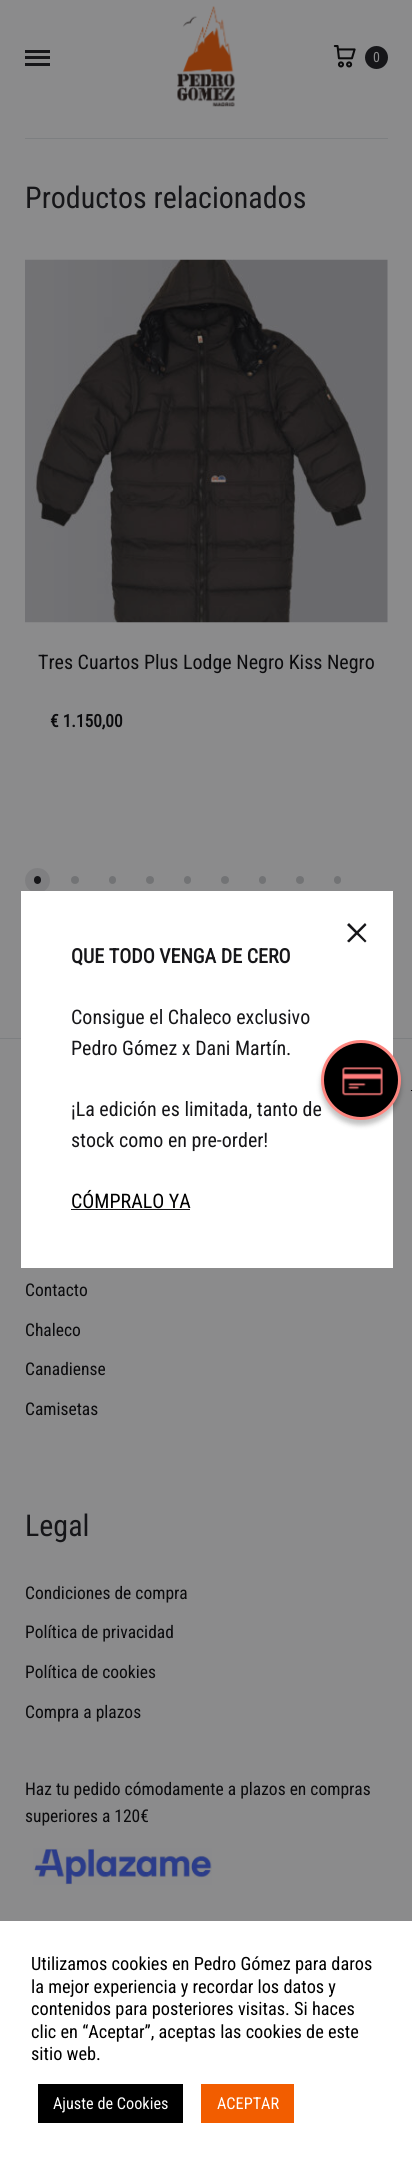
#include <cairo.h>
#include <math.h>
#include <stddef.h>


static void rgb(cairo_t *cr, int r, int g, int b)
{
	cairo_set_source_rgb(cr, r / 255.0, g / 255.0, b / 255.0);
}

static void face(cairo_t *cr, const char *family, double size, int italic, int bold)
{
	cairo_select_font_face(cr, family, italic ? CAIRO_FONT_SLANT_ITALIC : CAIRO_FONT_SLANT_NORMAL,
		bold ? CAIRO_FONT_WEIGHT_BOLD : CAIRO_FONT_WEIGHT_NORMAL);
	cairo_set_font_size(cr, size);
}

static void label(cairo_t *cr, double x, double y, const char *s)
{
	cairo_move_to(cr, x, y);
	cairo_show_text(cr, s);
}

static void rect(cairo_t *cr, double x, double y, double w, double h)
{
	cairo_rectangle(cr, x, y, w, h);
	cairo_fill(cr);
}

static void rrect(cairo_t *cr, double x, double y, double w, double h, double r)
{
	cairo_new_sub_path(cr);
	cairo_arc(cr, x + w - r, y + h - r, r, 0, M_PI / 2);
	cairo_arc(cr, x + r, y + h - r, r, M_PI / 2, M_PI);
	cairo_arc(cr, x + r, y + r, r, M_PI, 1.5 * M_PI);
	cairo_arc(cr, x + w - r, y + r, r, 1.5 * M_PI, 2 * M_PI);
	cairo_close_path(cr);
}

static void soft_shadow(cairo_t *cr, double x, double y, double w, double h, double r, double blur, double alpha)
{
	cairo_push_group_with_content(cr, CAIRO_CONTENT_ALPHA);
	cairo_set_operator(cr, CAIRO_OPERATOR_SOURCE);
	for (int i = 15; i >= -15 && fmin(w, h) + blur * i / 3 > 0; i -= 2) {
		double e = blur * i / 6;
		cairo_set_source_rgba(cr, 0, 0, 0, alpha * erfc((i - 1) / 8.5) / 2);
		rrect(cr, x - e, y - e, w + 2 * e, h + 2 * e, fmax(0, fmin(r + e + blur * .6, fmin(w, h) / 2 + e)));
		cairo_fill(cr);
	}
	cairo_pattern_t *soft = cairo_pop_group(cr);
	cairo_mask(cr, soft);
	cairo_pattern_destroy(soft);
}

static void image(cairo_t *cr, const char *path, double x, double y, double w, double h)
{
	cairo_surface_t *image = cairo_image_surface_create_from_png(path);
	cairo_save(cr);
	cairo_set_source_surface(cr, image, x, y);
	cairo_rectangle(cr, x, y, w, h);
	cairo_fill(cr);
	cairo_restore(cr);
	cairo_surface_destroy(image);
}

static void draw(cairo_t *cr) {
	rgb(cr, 139, 139, 140);
	cairo_paint(cr);
	rgb(cr, 22, 22, 25);
	rect(cr, 25, 56, 25, 3);
	rect(cr, 25, 50, 25, 3);
	rect(cr, 25, 63, 25, 3);
	image(cr, "image0.png", 177, 6, 58, 101);
	image(cr, "image1.png", 333, 45, 23, 23);
	cairo_arc(cr, 376.5, 57.5, 11.5, 0, 2 * M_PI);
	cairo_fill(cr);
	face(cr, "Roboto Condensed", 14, 0, 0);
	rgb(cr, 139, 139, 140);
	label(cr, 373, 62, "0");
	rgb(cr, 125, 127, 129);
	rect(cr, 25, 138, 363, 1);
	face(cr, "Roboto Condensed", 30, 0, 0);
	rgb(cr, 22, 22, 25);
	label(cr, 25, 208, "Productos relacionados");
	image(cr, "image2.png", 25, 259, 363, 364);
	face(cr, "Roboto Condensed", 20, 0, 0);
	rgb(cr, 11, 11, 13);
	label(cr, 38, 669, "Tres Cuartos Plus Lodge Negro Kiss Negro");
	face(cr, "Roboto Condensed", 17.5, 0, 1);
	label(cr, 50, 727, "€ 1.150,00");
	cairo_new_path(cr);
	cairo_arc(cr, 37.5, 880.5, 8, 0, 2 * M_PI);
	rgb(cr, 127, 127, 129);
	cairo_set_line_width(cr, 9);
	cairo_stroke(cr);
	rgb(cr, 22, 22, 25);
	rrect(cr, 34, 876, 7, 8, 3.5);
	cairo_fill(cr);
	rgb(cr, 114, 115, 117);
	cairo_arc(cr, 75, 880, 4, 0, 2 * M_PI);
	cairo_fill(cr);
	rrect(cr, 109, 876, 7, 8, 3.5);
	cairo_fill(cr);
	cairo_arc(cr, 150, 880, 4, 0, 2 * M_PI);
	cairo_fill(cr);
	rrect(cr, 184, 876, 7, 8, 3.5);
	cairo_fill(cr);
	cairo_arc(cr, 225, 880, 4, 0, 2 * M_PI);
	cairo_fill(cr);
	rrect(cr, 259, 876, 7, 8, 3.5);
	cairo_fill(cr);
	cairo_arc(cr, 300, 880, 4, 0, 2 * M_PI);
	cairo_fill(cr);
	rrect(cr, 334, 876, 7, 8, 3.5);
	cairo_fill(cr);
	rgb(cr, 125, 127, 129);
	rect(cr, 0, 1038, 412, 1);
	face(cr, "Roboto Condensed", 17.5, 0, 0);
	rgb(cr, 11, 11, 13);
	label(cr, 25, 1296, "Contacto");
	label(cr, 25, 1336, "Chaleco");
	label(cr, 25, 1375, "Canadiense");
	label(cr, 25, 1415, "Camisetas");
	face(cr, "Roboto Condensed", 30, 0, 0);
	rgb(cr, 22, 22, 25);
	label(cr, 25, 1536, "Legal");
	face(cr, "Roboto Condensed", 17.5, 0, 0);
	rgb(cr, 11, 11, 13);
	label(cr, 25, 1599, "Condiciones de compra");
	label(cr, 25, 1638, "Política de privacidad");
	label(cr, 25, 1678, "Política de cookies");
	label(cr, 25, 1718, "Compra a plazos");
	label(cr, 25, 1795, "Haz tu pedido cómodamente a plazos en compras");
	label(cr, 25, 1822, "superiores a 120€");
	image(cr, "image3.png", 33, 1848, 179, 37);
	rgb(cr, 255, 255, 255);
	rect(cr, 21, 891, 372, 377);
	rgb(cr, 22, 22, 25);
	cairo_new_path(cr);
	cairo_move_to(cr, 349, 923);
	cairo_line_to(cr, 366.5, 941);
	cairo_line_to(cr, 365, 942.5);
	cairo_line_to(cr, 347, 925);
	cairo_close_path(cr);
	cairo_fill(cr);
	cairo_new_path(cr);
	cairo_move_to(cr, 347, 941);
	cairo_line_to(cr, 365, 923);
	cairo_line_to(cr, 366.5, 925);
	cairo_line_to(cr, 349, 942.5);
	cairo_close_path(cr);
	cairo_fill(cr);
	face(cr, "Roboto Condensed", 20, 0, 1);
	label(cr, 71, 963, "QUE TODO VENGA DE CERO");
	face(cr, "Roboto Condensed", 20, 0, 0);
	label(cr, 71, 1024, "Consigue el Chaleco exclusivo");
	label(cr, 71, 1055, "Pedro Gómez x Dani Martín.");
	label(cr, 71, 1116, "¡La edición es limitada, tanto de");
	label(cr, 71, 1147, "stock como en pre-order!");
	rgb(cr, 0, 0, 0);
	label(cr, 71, 1208, "CÓMPRALO YA");
	rgb(cr, 22, 22, 25);
	rect(cr, 71, 1209, 119, 1);
	rgb(cr, 0, 0, 0);
	soft_shadow(cr, 321, 1045, 80, 80, 40, 2.5, 0.25);
	rgb(cr, 0, 0, 0);
	cairo_arc(cr, 361, 1080, 38.5, 0, 2 * M_PI);
	cairo_fill_preserve(cr);
	rgb(cr, 254, 134, 128);
	cairo_set_line_width(cr, 3);
	cairo_stroke(cr);
	image(cr, "image4.png", 342, 1067, 41, 29);
	rgb(cr, 0, 0, 0);
	rect(cr, 411, 1090, 1, 1);
	rgb(cr, 255, 255, 255);
	rect(cr, 0, 1921, 412, 238);
	face(cr, "Roboto Condensed", 18.3, 0, 0);
	rgb(cr, 0, 0, 0);
	label(cr, 31, 1970, "Utilizamos cookies en Pedro Gómez para daros");
	label(cr, 31, 1993, "la mejor experiencia y recordar los datos y");
	label(cr, 31, 2015, "contenidos para posteriores visitas. Si haces");
	label(cr, 31, 2038, "clic en “Aceptar”, aceptas las cookies de este");
	label(cr, 31, 2060, "sitio web.");
	rect(cr, 38, 2084, 145, 39);
	face(cr, "Roboto Condensed", 16.25, 0, 0);
	rgb(cr, 255, 255, 255);
	label(cr, 53, 2109, "Ajuste de Cookies");
	rgb(cr, 242, 93, 0);
	rect(cr, 201, 2084, 93, 39);
	rgb(cr, 255, 255, 255);
	label(cr, 217, 2109, "ACEPTAR");
}

int main(void) {
	cairo_surface_t *surface = cairo_image_surface_create(CAIRO_FORMAT_RGB24, 412, 2159);
	cairo_t *cr = cairo_create(surface);
	cairo_font_options_t *options = cairo_font_options_create();
	cairo_font_options_set_hint_metrics(options, CAIRO_HINT_METRICS_OFF);
	cairo_font_options_set_hint_style(options, CAIRO_HINT_STYLE_NONE);
	cairo_set_font_options(cr, options);
	cairo_set_miter_limit(cr, 4);
	draw(cr);
	cairo_surface_write_to_png(surface, "render.png");
	cairo_font_options_destroy(options);
	cairo_destroy(cr);
	cairo_surface_destroy(surface);
	return 0;
}
